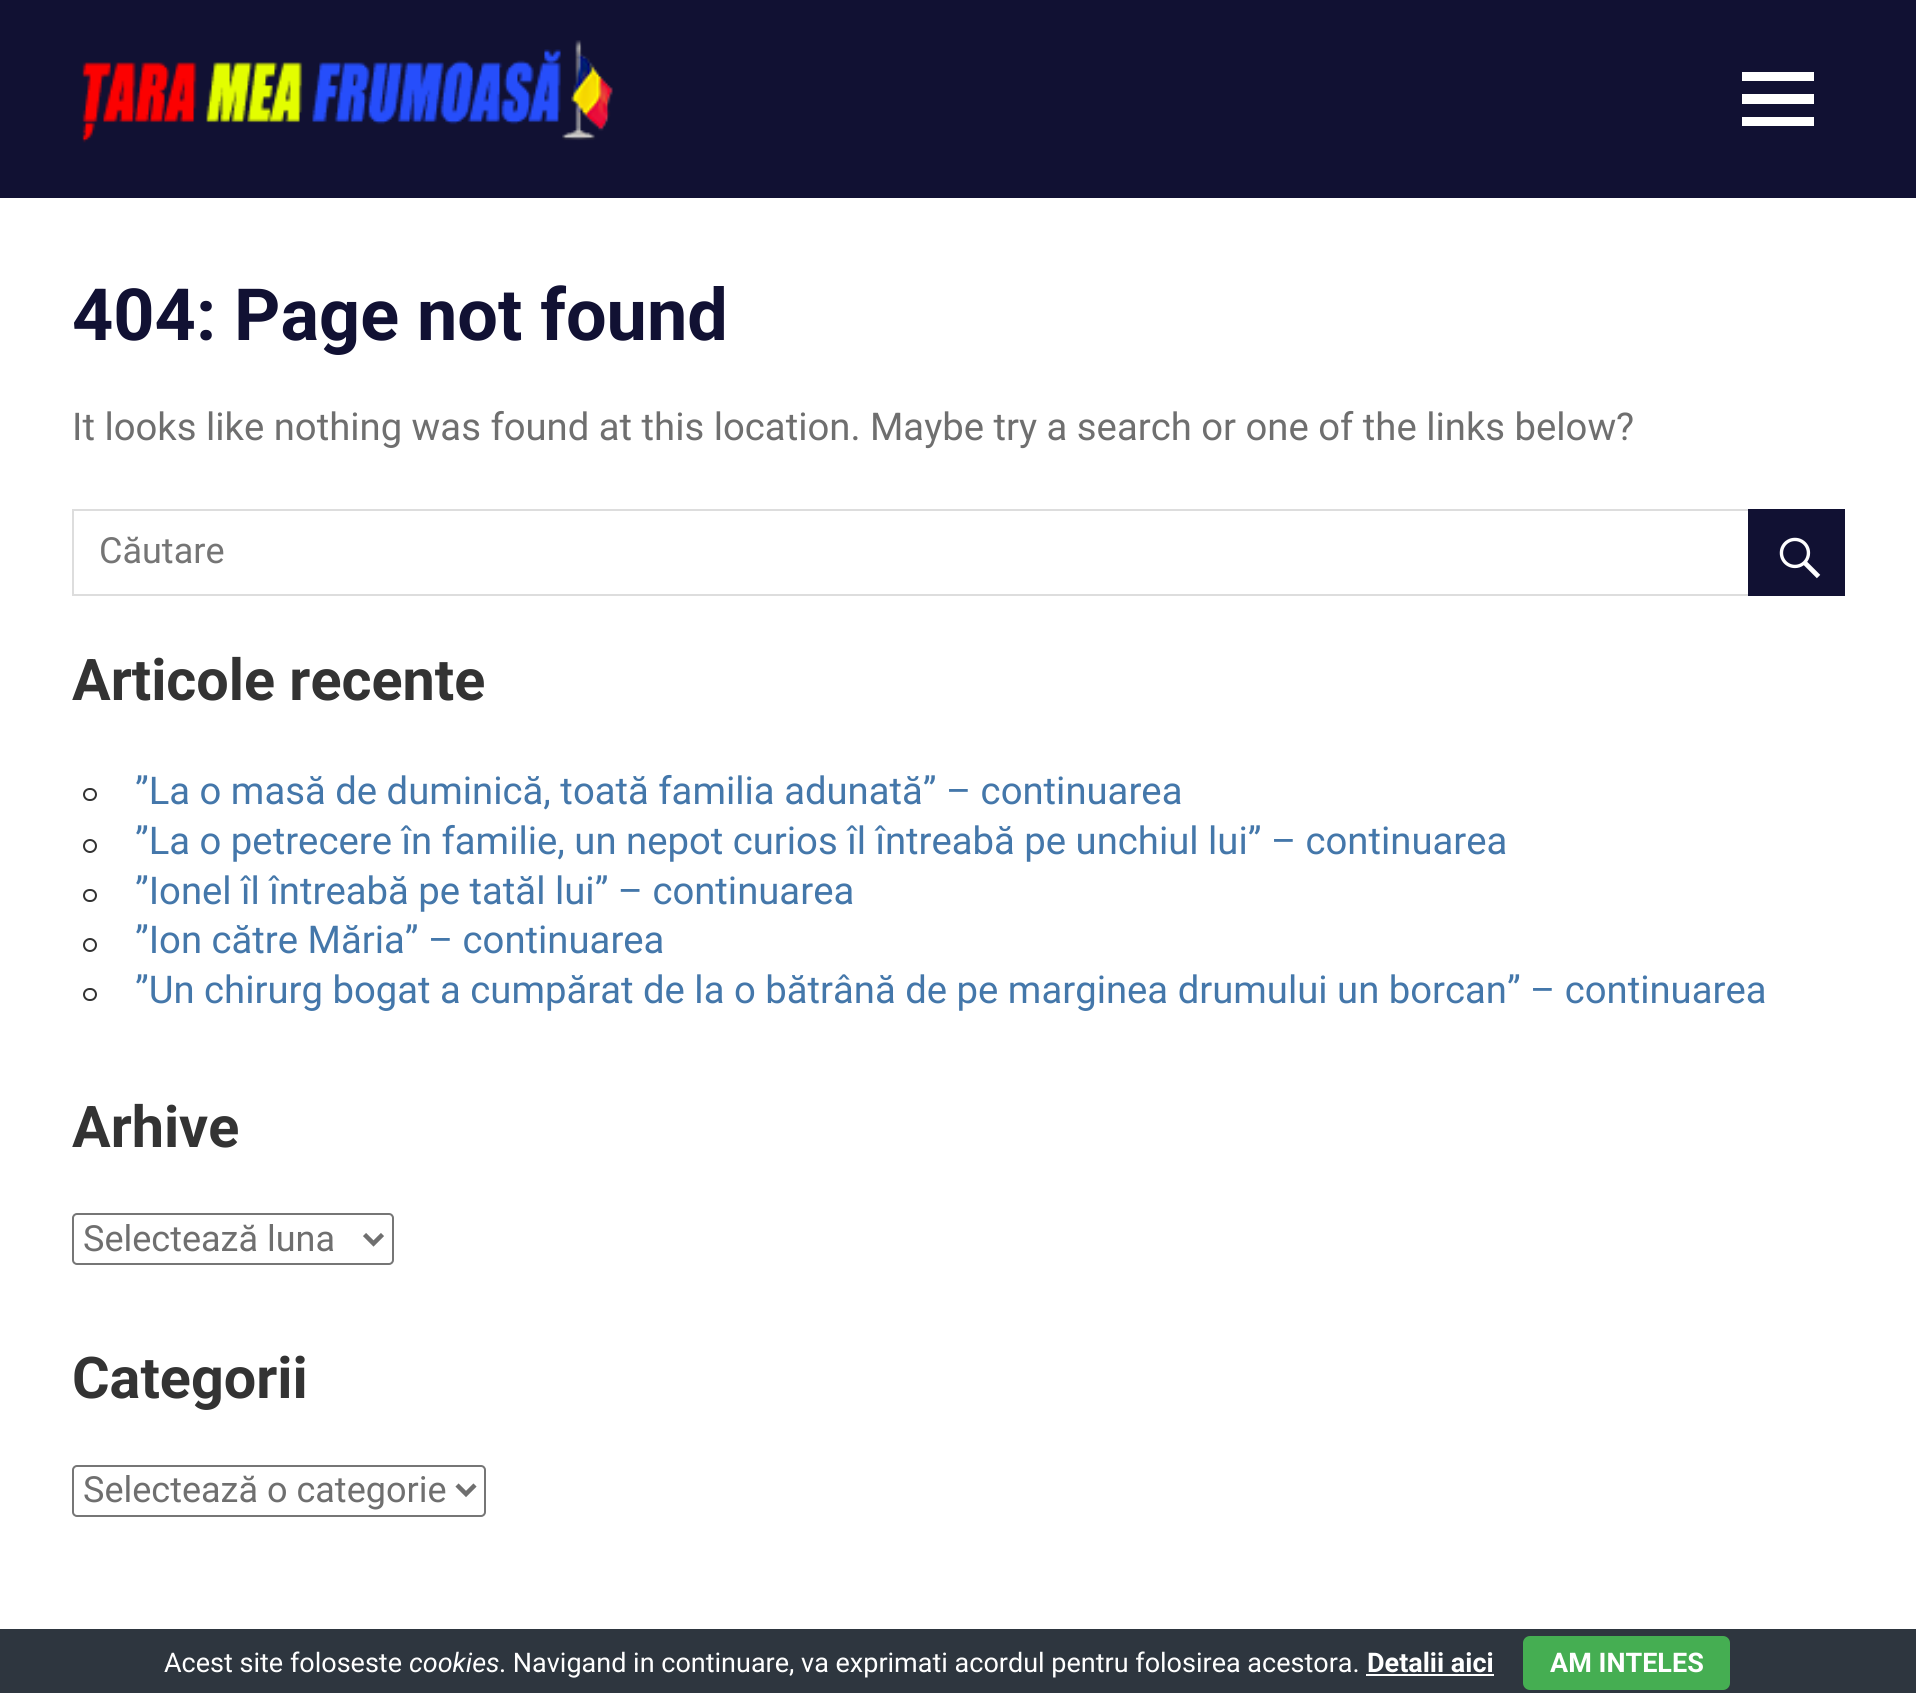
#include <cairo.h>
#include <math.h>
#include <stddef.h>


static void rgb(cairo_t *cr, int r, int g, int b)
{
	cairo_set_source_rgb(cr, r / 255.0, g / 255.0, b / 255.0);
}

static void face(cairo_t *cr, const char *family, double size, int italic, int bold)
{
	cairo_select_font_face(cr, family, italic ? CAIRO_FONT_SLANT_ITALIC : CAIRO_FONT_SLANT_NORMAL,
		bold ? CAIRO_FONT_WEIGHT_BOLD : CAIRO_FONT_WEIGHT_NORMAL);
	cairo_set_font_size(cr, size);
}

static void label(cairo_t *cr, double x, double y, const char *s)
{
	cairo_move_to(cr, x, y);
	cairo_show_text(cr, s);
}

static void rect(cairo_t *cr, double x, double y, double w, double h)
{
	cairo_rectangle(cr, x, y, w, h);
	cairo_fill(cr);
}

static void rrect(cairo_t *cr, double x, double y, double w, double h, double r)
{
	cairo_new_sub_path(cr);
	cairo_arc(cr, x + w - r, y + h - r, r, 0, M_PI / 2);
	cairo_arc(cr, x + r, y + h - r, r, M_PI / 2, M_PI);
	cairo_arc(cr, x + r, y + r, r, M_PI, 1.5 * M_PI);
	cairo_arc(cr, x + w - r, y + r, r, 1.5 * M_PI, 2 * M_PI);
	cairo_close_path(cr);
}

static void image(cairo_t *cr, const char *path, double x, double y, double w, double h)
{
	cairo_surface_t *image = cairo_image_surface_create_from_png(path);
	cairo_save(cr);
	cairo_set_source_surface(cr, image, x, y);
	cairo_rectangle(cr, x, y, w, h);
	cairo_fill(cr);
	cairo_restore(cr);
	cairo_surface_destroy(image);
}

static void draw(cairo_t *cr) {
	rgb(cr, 255, 255, 255);
	cairo_paint(cr);
	rgb(cr, 17, 17, 51);
	rect(cr, 0, 0, 1916, 198);
	image(cr, "image0.png", 82, 40, 531, 103);
	rgb(cr, 255, 255, 255);
	cairo_new_path(cr);
	cairo_move_to(cr, 1742, 126);
	cairo_line_to(cr, 1742, 117);
	cairo_line_to(cr, 1814, 117);
	cairo_line_to(cr, 1814, 126);
	cairo_close_path(cr);
	cairo_move_to(cr, 1742, 72);
	cairo_line_to(cr, 1814, 72);
	cairo_line_to(cr, 1814, 81);
	cairo_line_to(cr, 1742, 81);
	cairo_close_path(cr);
	cairo_move_to(cr, 1742, 104);
	cairo_line_to(cr, 1742, 94);
	cairo_line_to(cr, 1814, 94);
	cairo_line_to(cr, 1814, 104);
	cairo_close_path(cr);
	cairo_fill(cr);
	face(cr, "Roboto", 72, 0, 1);
	rgb(cr, 17, 17, 51);
	label(cr, 72, 340, "404: Page not found");
	face(cr, "Roboto", 38.25, 0, 0);
	rgb(cr, 111, 111, 111);
	label(cr, 72, 440, "It looks like nothing was found at this location. Maybe try a search or one of the links below?");
	cairo_rectangle(cr, 73, 510, 1771, 85);
	rgb(cr, 221, 221, 221);
	cairo_stroke(cr);
	face(cr, "Roboto", 36, 0, 0);
	rgb(cr, 117, 117, 117);
	label(cr, 99, 563, "Căutare");
	rgb(cr, 17, 17, 51);
	rect(cr, 1748, 509, 97, 87);
	image(cr, "image1.png", 1779, 537, 42, 42);
	face(cr, "Roboto", 57.5, 0, 1);
	rgb(cr, 51, 51, 51);
	label(cr, 72, 700, "Articole recente");
	rrect(cr, 84, 789, 12, 11, 5.5);
	cairo_stroke(cr);
	face(cr, "Roboto", 38.25, 0, 0);
	rgb(cr, 68, 119, 170);
	label(cr, 135, 804, "”La o masă de duminică, toată familia adunată” – continuarea");
	cairo_new_path(cr);
	cairo_arc(cr, 90, 846, 6, 0, 2 * M_PI);
	rgb(cr, 51, 51, 51);
	cairo_stroke(cr);
	rgb(cr, 68, 119, 170);
	label(cr, 135, 854, "”La o petrecere în familie, un nepot curios îl întreabă pe unchiul lui” – continuarea");
	rrect(cr, 84, 890, 12, 11, 5.5);
	rgb(cr, 51, 51, 51);
	cairo_stroke(cr);
	rgb(cr, 68, 119, 170);
	label(cr, 135, 904, "”Ionel îl întreabă pe tatăl lui” – continuarea");
	cairo_new_path(cr);
	cairo_arc(cr, 90, 945, 6, 0, 2 * M_PI);
	rgb(cr, 51, 51, 51);
	cairo_stroke(cr);
	rgb(cr, 68, 119, 170);
	label(cr, 135, 953, "”Ion către Măria” – continuarea");
	rrect(cr, 84, 989, 12, 11, 5.5);
	rgb(cr, 51, 51, 51);
	cairo_stroke(cr);
	rgb(cr, 68, 119, 170);
	label(cr, 135, 1003, "”Un chirurg bogat a cumpărat de la o bătrână de pe marginea drumului un borcan” – continuarea");
	face(cr, "Roboto", 57.5, 0, 1);
	rgb(cr, 51, 51, 51);
	label(cr, 72, 1147, "Arhive");
	rrect(cr, 73, 1214, 320, 50, 4);
	rgb(cr, 118, 118, 118);
	cairo_stroke(cr);
	cairo_new_path(cr);
	cairo_move_to(cr, 364.5, 1234.5);
	cairo_line_to(cr, 373.5, 1243.5);
	cairo_line_to(cr, 382.5, 1234.5);
	rgb(cr, 111, 111, 111);
	cairo_set_line_width(cr, 4.5);
	cairo_stroke(cr);
	face(cr, "Roboto", 36, 0, 0);
	label(cr, 83, 1251, "Selectează luna");
	face(cr, "Roboto", 57.5, 0, 1);
	rgb(cr, 51, 51, 51);
	label(cr, 72, 1398, "Categorii");
	rrect(cr, 73, 1466, 412, 50, 4);
	rgb(cr, 118, 118, 118);
	cairo_set_line_width(cr, 2);
	cairo_stroke(cr);
	cairo_new_path(cr);
	cairo_move_to(cr, 457, 1485);
	cairo_line_to(cr, 466, 1494);
	cairo_line_to(cr, 475, 1485);
	rgb(cr, 111, 111, 111);
	cairo_set_line_width(cr, 4.5);
	cairo_stroke(cr);
	face(cr, "Roboto", 36, 0, 0);
	label(cr, 83, 1502, "Selectează o categorie");
	rgb(cr, 46, 54, 63);
	rect(cr, 0, 1629, 1916, 64);
	face(cr, "Roboto", 27, 0, 0);
	rgb(cr, 255, 255, 255);
	label(cr, 164, 1672, "Acest site foloseste");
	face(cr, "Roboto", 27, 1, 0);
	label(cr, 409, 1672, "cookies");
	face(cr, "Roboto", 27, 0, 0);
	label(cr, 499, 1672, ". Navigand in continuare, va exprimati acordul pentru folosirea acestora.");
	face(cr, "Roboto", 27, 0, 1);
	label(cr, 1367, 1672, "Detalii aici");
	rect(cr, 1366, 1674, 128, 2);
	rgb(cr, 69, 174, 82);
	rrect(cr, 1523, 1636, 207, 54, 7);
	cairo_fill(cr);
	rgb(cr, 255, 255, 255);
	label(cr, 1550, 1672, "AM INTELES");
}

int main(void) {
	cairo_surface_t *surface = cairo_image_surface_create(CAIRO_FORMAT_RGB24, 1916, 1693);
	cairo_t *cr = cairo_create(surface);
	cairo_font_options_t *options = cairo_font_options_create();
	cairo_font_options_set_hint_metrics(options, CAIRO_HINT_METRICS_OFF);
	cairo_font_options_set_hint_style(options, CAIRO_HINT_STYLE_NONE);
	cairo_set_font_options(cr, options);
	cairo_set_miter_limit(cr, 4);
	draw(cr);
	cairo_surface_write_to_png(surface, "render.png");
	cairo_font_options_destroy(options);
	cairo_destroy(cr);
	cairo_surface_destroy(surface);
	return 0;
}
